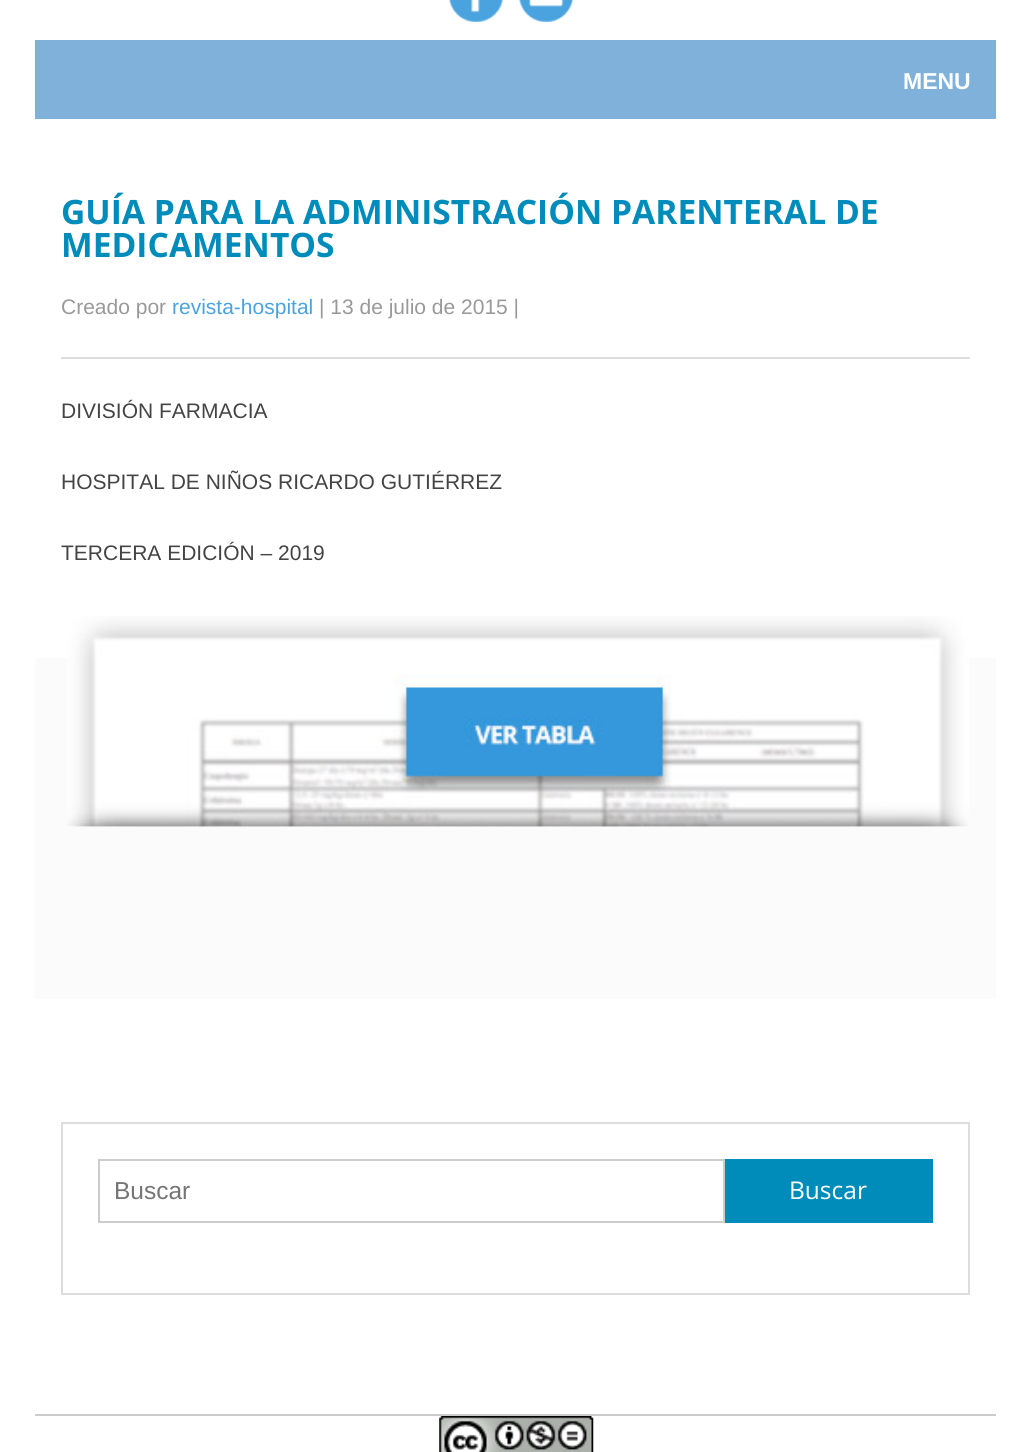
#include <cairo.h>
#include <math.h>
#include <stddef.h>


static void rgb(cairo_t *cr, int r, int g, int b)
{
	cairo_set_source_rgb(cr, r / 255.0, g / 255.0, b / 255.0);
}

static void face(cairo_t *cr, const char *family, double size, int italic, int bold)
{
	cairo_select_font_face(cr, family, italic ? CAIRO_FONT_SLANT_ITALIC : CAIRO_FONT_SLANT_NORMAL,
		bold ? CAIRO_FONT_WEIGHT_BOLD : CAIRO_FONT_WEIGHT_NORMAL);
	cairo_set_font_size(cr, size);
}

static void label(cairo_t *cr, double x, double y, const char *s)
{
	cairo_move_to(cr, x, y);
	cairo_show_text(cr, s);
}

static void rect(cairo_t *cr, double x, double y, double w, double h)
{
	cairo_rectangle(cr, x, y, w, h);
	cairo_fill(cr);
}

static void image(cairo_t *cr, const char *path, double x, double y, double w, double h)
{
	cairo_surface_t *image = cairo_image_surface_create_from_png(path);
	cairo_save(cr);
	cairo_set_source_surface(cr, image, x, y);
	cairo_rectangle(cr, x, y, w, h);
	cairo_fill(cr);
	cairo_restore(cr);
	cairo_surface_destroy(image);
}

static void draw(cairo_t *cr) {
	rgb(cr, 255, 255, 255);
	cairo_paint(cr);
	image(cr, "image0.png", 449, 0, 54, 22);
	image(cr, "image1.png", 519, 0, 54, 22);
	rgb(cr, 128, 177, 218);
	rect(cr, 35, 40, 961, 79);
	face(cr, "Liberation Sans", 23, 0, 1);
	rgb(cr, 255, 255, 255);
	label(cr, 903, 89, "MENU");
	face(cr, "Open Sans", 33.6, 0, 1);
	rgb(cr, 0, 140, 186);
	label(cr, 61, 224, "GUÍA PARA LA ADMINISTRACIÓN PARENTERAL DE");
	label(cr, 61, 257, "MEDICAMENTOS");
	face(cr, "Liberation Sans", 21, 0, 0);
	rgb(cr, 153, 153, 153);
	label(cr, 61, 314, "Creado por");
	rgb(cr, 74, 163, 223);
	label(cr, 172, 314, "revista-hospital");
	rgb(cr, 153, 153, 153);
	label(cr, 319, 314, "| 13 de julio de 2015 |");
	rgb(cr, 221, 221, 221);
	rect(cr, 61, 357, 909, 2);
	rgb(cr, 68, 68, 68);
	label(cr, 61, 418, "DIVISIÓN FARMACIA");
	label(cr, 61, 489, "HOSPITAL DE NIÑOS RICARDO GUTIÉRREZ");
	label(cr, 61, 560, "TERCERA EDICIÓN – 2019");
	rgb(cr, 251, 251, 251);
	rect(cr, 35, 658, 961, 341);
	image(cr, "image2.png", 67, 616, 902, 211);
	cairo_rectangle(cr, 62, 1123, 907, 171);
	rgb(cr, 221, 221, 221);
	cairo_stroke(cr);
	cairo_rectangle(cr, 99, 1160, 625, 62);
	rgb(cr, 204, 204, 204);
	cairo_stroke(cr);
	face(cr, "Liberation Sans", 24.5, 0, 0);
	rgb(cr, 117, 117, 117);
	label(cr, 114, 1199, "Buscar");
	rgb(cr, 0, 140, 186);
	rect(cr, 725, 1159, 208, 64);
	face(cr, "Open Sans", 24.5, 0, 0);
	rgb(cr, 255, 255, 255);
	label(cr, 789, 1199, "Buscar");
	rgb(cr, 204, 204, 204);
	rect(cr, 35, 1414, 961, 2);
	image(cr, "image3.png", 439, 1416, 155, 36);
}

int main(void) {
	cairo_surface_t *surface = cairo_image_surface_create(CAIRO_FORMAT_RGB24, 1030, 1452);
	cairo_t *cr = cairo_create(surface);
	cairo_font_options_t *options = cairo_font_options_create();
	cairo_font_options_set_hint_metrics(options, CAIRO_HINT_METRICS_OFF);
	cairo_font_options_set_hint_style(options, CAIRO_HINT_STYLE_NONE);
	cairo_set_font_options(cr, options);
	cairo_set_miter_limit(cr, 4);
	draw(cr);
	cairo_surface_write_to_png(surface, "render.png");
	cairo_font_options_destroy(options);
	cairo_destroy(cr);
	cairo_surface_destroy(surface);
	return 0;
}
